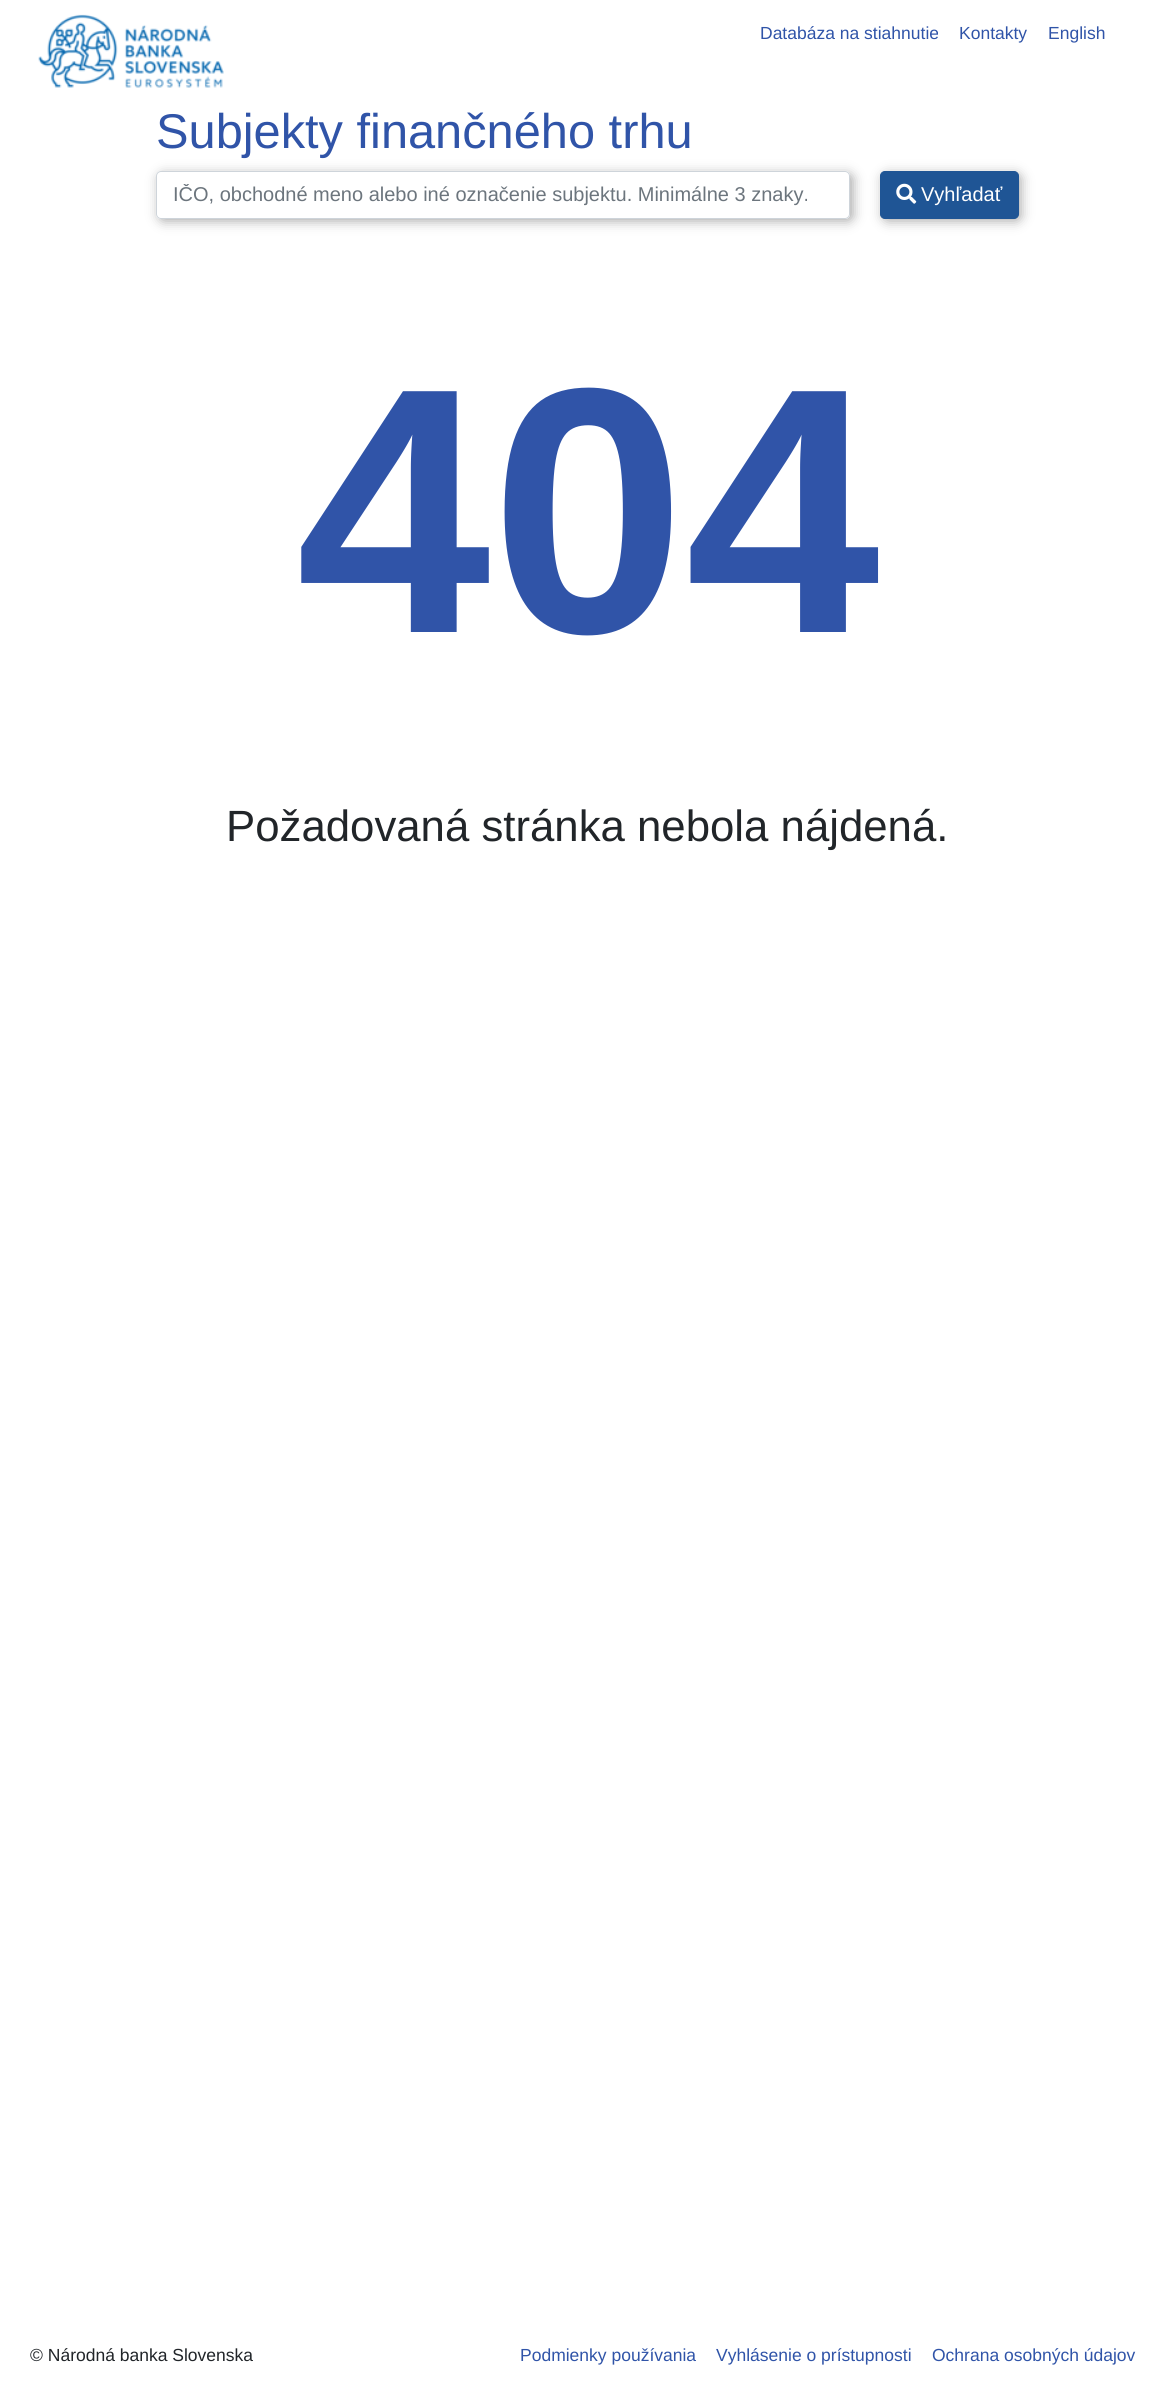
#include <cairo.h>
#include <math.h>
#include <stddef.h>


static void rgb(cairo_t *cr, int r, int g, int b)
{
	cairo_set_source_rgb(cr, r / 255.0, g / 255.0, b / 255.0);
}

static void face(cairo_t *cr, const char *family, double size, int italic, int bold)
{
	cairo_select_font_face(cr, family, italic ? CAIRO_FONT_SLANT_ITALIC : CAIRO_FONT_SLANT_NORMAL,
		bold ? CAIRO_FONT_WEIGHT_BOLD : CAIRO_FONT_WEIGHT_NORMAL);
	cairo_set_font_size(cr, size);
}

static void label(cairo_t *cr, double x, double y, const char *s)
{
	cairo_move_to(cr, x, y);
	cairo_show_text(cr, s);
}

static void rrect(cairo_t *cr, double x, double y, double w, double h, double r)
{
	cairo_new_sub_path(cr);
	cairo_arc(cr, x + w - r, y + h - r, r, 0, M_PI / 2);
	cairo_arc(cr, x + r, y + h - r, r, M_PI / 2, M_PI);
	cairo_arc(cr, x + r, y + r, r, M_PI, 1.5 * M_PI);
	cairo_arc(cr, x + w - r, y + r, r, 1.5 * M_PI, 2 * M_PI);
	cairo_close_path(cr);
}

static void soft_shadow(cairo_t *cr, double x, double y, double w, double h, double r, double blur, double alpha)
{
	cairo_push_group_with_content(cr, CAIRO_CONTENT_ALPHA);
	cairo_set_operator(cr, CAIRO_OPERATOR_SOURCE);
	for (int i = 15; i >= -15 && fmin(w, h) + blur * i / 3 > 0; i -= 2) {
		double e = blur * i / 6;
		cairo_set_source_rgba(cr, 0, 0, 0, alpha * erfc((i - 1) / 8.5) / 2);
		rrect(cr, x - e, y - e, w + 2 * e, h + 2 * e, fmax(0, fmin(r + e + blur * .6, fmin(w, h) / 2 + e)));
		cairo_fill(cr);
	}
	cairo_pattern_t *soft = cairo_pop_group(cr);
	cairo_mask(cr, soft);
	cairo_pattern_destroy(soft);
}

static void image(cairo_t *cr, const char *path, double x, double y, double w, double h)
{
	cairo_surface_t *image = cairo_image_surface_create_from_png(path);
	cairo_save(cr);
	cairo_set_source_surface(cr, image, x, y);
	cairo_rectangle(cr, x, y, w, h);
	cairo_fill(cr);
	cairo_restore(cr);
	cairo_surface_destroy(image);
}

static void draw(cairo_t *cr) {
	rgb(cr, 255, 255, 255);
	cairo_paint(cr);
	image(cr, "image0.png", 38, 14, 186, 74);
	face(cr, "Liberation Sans", 17.5, 0, 0);
	rgb(cr, 48, 84, 168);
	label(cr, 760, 39, "Databáza na stiahnutie");
	label(cr, 959, 39, "Kontakty");
	label(cr, 1048, 39, "English");
	face(cr, "Liberation Sans", 48.75, 0, 0);
	label(cr, 156, 148, "Subjekty finančného trhu");
	cairo_save(cr);
	cairo_set_fill_rule(cr, CAIRO_FILL_RULE_EVEN_ODD);
	cairo_new_path(cr);
	cairo_move_to(cr, 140, 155);
	cairo_line_to(cr, 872, 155);
	cairo_line_to(cr, 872, 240);
	cairo_line_to(cr, 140, 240);
	cairo_close_path(cr);
	cairo_move_to(cr, 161, 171);
	cairo_line_to(cr, 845, 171);
	cairo_curve_to(cr, 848, 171, 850, 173, 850, 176);
	cairo_line_to(cr, 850, 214);
	cairo_curve_to(cr, 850, 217, 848, 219, 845, 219);
	cairo_line_to(cr, 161, 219);
	cairo_curve_to(cr, 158, 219, 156, 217, 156, 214);
	cairo_line_to(cr, 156, 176);
	cairo_curve_to(cr, 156, 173, 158, 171, 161, 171);
	cairo_close_path(cr);
	cairo_clip(cr);
	rgb(cr, 170, 170, 170);
	soft_shadow(cr, 159, 174, 694, 47, 5, 6, 1);
	cairo_restore(cr);
	rrect(cr, 156.5, 171.5, 693, 47, 4.5);
	rgb(cr, 206, 212, 218);
	cairo_set_line_width(cr, 1);
	cairo_stroke(cr);
	cairo_save(cr);
	cairo_rectangle(cr, 173, 184, 661, 22);
	cairo_clip(cr);
	face(cr, "Liberation Sans", 20, 0, 0);
	rgb(cr, 108, 117, 125);
	label(cr, 173, 201, "IČO, obchodné meno alebo iné označenie subjektu. Minimálne 3 znaky.");
	cairo_restore(cr);
	rgb(cr, 170, 170, 170);
	soft_shadow(cr, 883, 174, 138, 47, 5, 6, 1);
	rgb(cr, 31, 85, 149);
	rrect(cr, 880.5, 171.5, 138, 47, 4.5);
	cairo_fill_preserve(cr);
	cairo_stroke(cr);
	image(cr, "image1.png", 896, 183, 21, 21);
	face(cr, "Liberation Sans", 20, 0, 0);
	rgb(cr, 255, 255, 255);
	label(cr, 921, 201, "Vyhľadať");
	face(cr, "Liberation Sans", 350, 0, 1);
	rgb(cr, 48, 84, 168);
	label(cr, 296, 632, "404");
	face(cr, "Liberation Sans", 43.75, 0, 0);
	rgb(cr, 33, 37, 41);
	label(cr, 226, 841, "Požadovaná stránka nebola nájdená.");
	face(cr, "Liberation Sans", 17.5, 0, 0);
	label(cr, 30, 2361, "© Národná banka Slovenska");
	rgb(cr, 48, 84, 168);
	label(cr, 520, 2361, "Podmienky používania");
	label(cr, 716, 2361, "Vyhlásenie o prístupnosti");
	label(cr, 932, 2361, "Ochrana osobných údajov");
}

int main(void) {
	cairo_surface_t *surface = cairo_image_surface_create(CAIRO_FORMAT_RGB24, 1174, 2388);
	cairo_t *cr = cairo_create(surface);
	cairo_font_options_t *options = cairo_font_options_create();
	cairo_font_options_set_hint_metrics(options, CAIRO_HINT_METRICS_OFF);
	cairo_font_options_set_hint_style(options, CAIRO_HINT_STYLE_NONE);
	cairo_set_font_options(cr, options);
	cairo_set_miter_limit(cr, 4);
	draw(cr);
	cairo_surface_write_to_png(surface, "render.png");
	cairo_font_options_destroy(options);
	cairo_destroy(cr);
	cairo_surface_destroy(surface);
	return 0;
}
